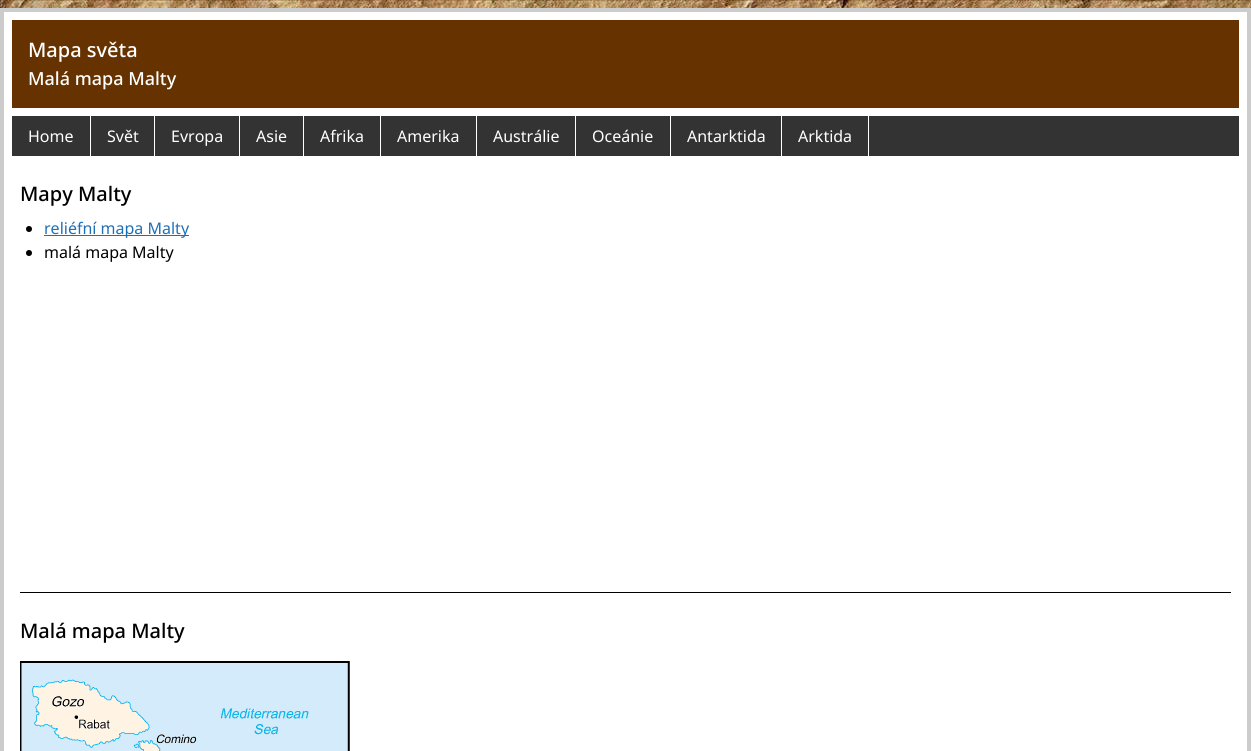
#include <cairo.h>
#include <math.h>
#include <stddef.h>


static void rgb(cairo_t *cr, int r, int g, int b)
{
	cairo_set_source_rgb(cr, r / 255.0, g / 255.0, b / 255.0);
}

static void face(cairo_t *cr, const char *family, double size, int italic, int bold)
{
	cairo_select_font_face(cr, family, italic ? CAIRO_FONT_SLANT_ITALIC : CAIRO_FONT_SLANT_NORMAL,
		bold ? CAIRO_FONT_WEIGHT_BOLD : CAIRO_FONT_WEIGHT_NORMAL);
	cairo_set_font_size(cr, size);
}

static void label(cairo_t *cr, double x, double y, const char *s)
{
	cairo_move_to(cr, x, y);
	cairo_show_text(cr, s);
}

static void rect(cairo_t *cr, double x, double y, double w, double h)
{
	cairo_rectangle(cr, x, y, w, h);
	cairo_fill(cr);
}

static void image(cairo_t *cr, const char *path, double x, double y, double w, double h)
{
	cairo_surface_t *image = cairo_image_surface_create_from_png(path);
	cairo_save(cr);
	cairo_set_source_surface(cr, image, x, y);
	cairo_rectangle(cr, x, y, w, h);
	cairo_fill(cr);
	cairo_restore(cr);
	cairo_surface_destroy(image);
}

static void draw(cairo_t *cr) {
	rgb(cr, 255, 255, 255);
	cairo_paint(cr);
	image(cr, "image0.png", 0, 0, 1251, 8);
	rgb(cr, 204, 204, 204);
	rect(cr, 0, 8, 1251, 4);
	rect(cr, 1247, 8, 4, 743);
	rect(cr, 0, 8, 4, 743);
	rgb(cr, 102, 51, 0);
	rect(cr, 12, 20, 1227, 88);
	face(cr, "Noto Sans Medium", 20, 0, 0);
	rgb(cr, 255, 255, 255);
	label(cr, 28, 57, "Mapa světa");
	face(cr, "Noto Sans Medium", 18, 0, 0);
	label(cr, 28, 85, "Malá mapa Malty");
	rgb(cr, 51, 51, 51);
	rect(cr, 12, 116, 78, 40);
	face(cr, "Noto Sans", 16, 0, 0);
	rgb(cr, 255, 255, 255);
	label(cr, 28, 142, "Home");
	rgb(cr, 51, 51, 51);
	rect(cr, 91, 116, 63, 40);
	rgb(cr, 255, 255, 255);
	label(cr, 107, 142, "Svět");
	rgb(cr, 51, 51, 51);
	rect(cr, 155, 116, 84, 40);
	rgb(cr, 255, 255, 255);
	label(cr, 171, 142, "Evropa");
	rgb(cr, 51, 51, 51);
	rect(cr, 240, 116, 63, 40);
	rgb(cr, 255, 255, 255);
	label(cr, 256, 142, "Asie");
	rgb(cr, 51, 51, 51);
	rect(cr, 304, 116, 76, 40);
	rgb(cr, 255, 255, 255);
	label(cr, 320, 142, "Afrika");
	rgb(cr, 51, 51, 51);
	rect(cr, 381, 116, 95, 40);
	rgb(cr, 255, 255, 255);
	label(cr, 397, 142, "Amerika");
	rgb(cr, 51, 51, 51);
	rect(cr, 477, 116, 98, 40);
	rgb(cr, 255, 255, 255);
	label(cr, 493, 142, "Austrálie");
	rgb(cr, 51, 51, 51);
	rect(cr, 576, 116, 94, 40);
	rgb(cr, 255, 255, 255);
	label(cr, 592, 142, "Oceánie");
	rgb(cr, 51, 51, 51);
	rect(cr, 671, 116, 110, 40);
	rgb(cr, 255, 255, 255);
	label(cr, 687, 142, "Antarktida");
	rgb(cr, 51, 51, 51);
	rect(cr, 782, 116, 86, 40);
	rgb(cr, 255, 255, 255);
	label(cr, 798, 142, "Arktida");
	rgb(cr, 51, 51, 51);
	rect(cr, 869, 116, 370, 40);
	face(cr, "Noto Sans Medium", 20, 0, 0);
	rgb(cr, 0, 0, 0);
	label(cr, 20, 201, "Mapy Malty");
	cairo_new_path(cr);
	cairo_arc(cr, 29, 229, 3, 0, 2 * M_PI);
	cairo_fill(cr);
	rgb(cr, 29, 112, 184);
	rect(cr, 44, 235, 145, 1);
	face(cr, "Noto Sans", 16, 0, 0);
	label(cr, 44, 234, "reliéfní mapa Malty");
	rgb(cr, 0, 0, 0);
	cairo_new_path(cr);
	cairo_arc(cr, 29, 253, 3, 0, 2 * M_PI);
	cairo_fill(cr);
	label(cr, 44, 258, "malá mapa Malty");
	rect(cr, 20, 592, 1211, 1);
	face(cr, "Noto Sans Medium", 20, 0, 0);
	label(cr, 20, 638, "Malá mapa Malty");
	image(cr, "image1.png", 20, 661, 330, 90);
}

int main(void) {
	cairo_surface_t *surface = cairo_image_surface_create(CAIRO_FORMAT_RGB24, 1251, 751);
	cairo_t *cr = cairo_create(surface);
	cairo_font_options_t *options = cairo_font_options_create();
	cairo_font_options_set_hint_metrics(options, CAIRO_HINT_METRICS_OFF);
	cairo_font_options_set_hint_style(options, CAIRO_HINT_STYLE_NONE);
	cairo_set_font_options(cr, options);
	cairo_set_miter_limit(cr, 4);
	draw(cr);
	cairo_surface_write_to_png(surface, "render.png");
	cairo_font_options_destroy(options);
	cairo_destroy(cr);
	cairo_surface_destroy(surface);
	return 0;
}
